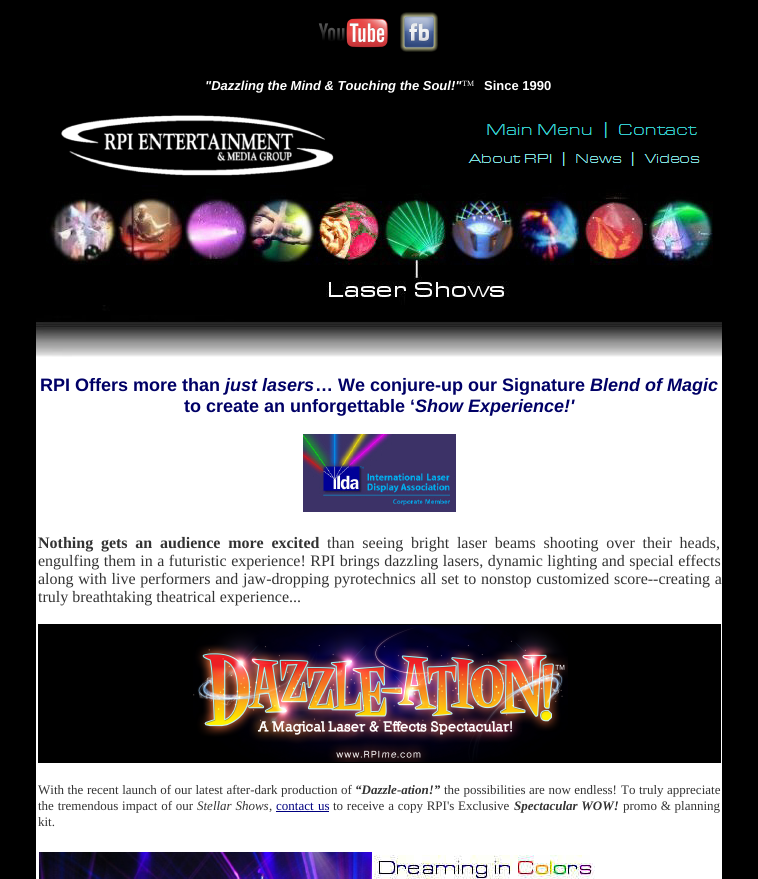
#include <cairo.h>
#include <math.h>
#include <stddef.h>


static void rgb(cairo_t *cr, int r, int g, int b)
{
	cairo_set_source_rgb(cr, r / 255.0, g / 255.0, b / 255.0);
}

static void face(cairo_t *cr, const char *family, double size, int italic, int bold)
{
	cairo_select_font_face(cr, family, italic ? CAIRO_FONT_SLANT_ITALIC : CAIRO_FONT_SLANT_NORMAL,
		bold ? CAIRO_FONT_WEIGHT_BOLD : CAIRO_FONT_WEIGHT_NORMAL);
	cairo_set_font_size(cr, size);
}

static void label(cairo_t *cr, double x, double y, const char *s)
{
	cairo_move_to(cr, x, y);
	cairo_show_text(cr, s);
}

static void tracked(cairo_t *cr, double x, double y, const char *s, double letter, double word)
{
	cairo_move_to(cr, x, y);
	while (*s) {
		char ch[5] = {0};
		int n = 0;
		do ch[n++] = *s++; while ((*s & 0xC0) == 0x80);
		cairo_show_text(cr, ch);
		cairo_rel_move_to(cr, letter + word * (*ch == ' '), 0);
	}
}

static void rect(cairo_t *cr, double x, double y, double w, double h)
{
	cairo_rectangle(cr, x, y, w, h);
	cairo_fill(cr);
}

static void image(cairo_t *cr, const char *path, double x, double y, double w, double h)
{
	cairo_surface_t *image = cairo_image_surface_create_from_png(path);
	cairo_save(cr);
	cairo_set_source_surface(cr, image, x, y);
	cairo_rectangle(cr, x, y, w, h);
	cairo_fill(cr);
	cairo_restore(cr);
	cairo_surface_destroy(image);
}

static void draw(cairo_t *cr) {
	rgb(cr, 0, 0, 0);
	cairo_paint(cr);
	image(cr, "image0.png", 318, 18, 70, 30);
	image(cr, "image1.png", 400, 12, 38, 40);
	face(cr, "Liberation Sans", 13, 1, 1);
	rgb(cr, 255, 255, 255);
	label(cr, 205, 90, "\"Dazzling the Mind & Touching the Soul!\"");
	face(cr, "Liberation Serif", 8, 0, 0);
	label(cr, 462, 86, "TM");
	face(cr, "Liberation Sans", 13, 0, 1);
	label(cr, 484, 90, "Since 1990");
	image(cr, "image2.png", 61, 115, 639, 61);
	image(cr, "image3.png", 46, 185, 667, 126);
	rect(cr, 36, 357, 686, 522);
	image(cr, "image4.png", 36, 315, 686, 42);
	face(cr, "Liberation Sans", 18, 0, 1);
	rgb(cr, 0, 0, 102);
	label(cr, 40, 391, "RPI Offers more than");
	face(cr, "Liberation Sans", 18, 1, 1);
	label(cr, 225, 391, "just lasers");
	face(cr, "Liberation Sans", 18, 0, 1);
	label(cr, 315, 391, "… We conjure-up our Signature");
	face(cr, "Liberation Sans", 18, 1, 1);
	label(cr, 590, 391, "Blend of Magic");
	face(cr, "Liberation Sans", 18, 0, 1);
	label(cr, 184, 412, "to create an unforgettable ‘");
	face(cr, "Liberation Sans", 18, 1, 1);
	label(cr, 415, 412, "Show Experience!'");
	image(cr, "image5.png", 303, 434, 153, 78);
	face(cr, "Liberation Serif", 16, 0, 1);
	rgb(cr, 51, 51, 51);
	tracked(cr, 38, 548, "Nothing gets an audience more excited", 0, 3.75);
	face(cr, "Liberation Serif", 16, 0, 0);
	tracked(cr, 327, 548, "than seeing bright laser beams shooting over their heads,", 0, 3.75);
	tracked(cr, 38, 566, "engulfing them in a futuristic experience! RPI brings dazzling lasers, dynamic lighting and special effects", 0, 0.5);
	tracked(cr, 38, 584, "along with live performers and jaw-dropping pyrotechnics all set to nonstop customized score--creating a", 0, 0.75);
	label(cr, 38, 602, "truly breathtaking theatrical experience...");
	rgb(cr, 0, 0, 0);
	rect(cr, 38, 624, 683, 139);
	image(cr, "image6.png", 193, 625, 375, 137);
	face(cr, "Liberation Serif", 13, 0, 0);
	rgb(cr, 51, 51, 51);
	tracked(cr, 38, 794, "With the recent launch of our latest after-dark production of", 0, 0.25);
	face(cr, "Liberation Serif", 13, 1, 1);
	label(cr, 355, 794, "“Dazzle-ation!”");
	face(cr, "Liberation Serif", 13, 0, 0);
	tracked(cr, 444, 794, "the possibilities are now endless!", 0, 0.25);
	tracked(cr, 621, 794, "To truly", 0, 0.25);
	label(cr, 667, 794, "appreciate");
	tracked(cr, 38, 810, "the tremendous impact of our", 0, 0.5);
	face(cr, "Liberation Serif", 13, 1, 0);
	tracked(cr, 197, 810, "Stellar Shows", 0, 0.5);
	face(cr, "Liberation Serif", 13, 0, 0);
	label(cr, 269, 810, ",");
	rgb(cr, 0, 0, 128);
	rect(cr, 276, 811, 53, 1);
	label(cr, 276, 810, "contact");
	label(cr, 318, 810, "us");
	rgb(cr, 51, 51, 51);
	tracked(cr, 333, 810, "to receive a copy RPI's Exclusive", 0, 0.5);
	face(cr, "Liberation Serif", 13, 1, 1);
	tracked(cr, 514, 810, "Spectacular WOW!", 0, 0.5);
	face(cr, "Liberation Serif", 13, 0, 0);
	tracked(cr, 623, 810, "promo & planning", 0, 0.5);
	label(cr, 38, 826, "kit.");
	image(cr, "image7.png", 39, 852, 333, 27);
	image(cr, "image8.png", 374, 855, 221, 24);
}

int main(void) {
	cairo_surface_t *surface = cairo_image_surface_create(CAIRO_FORMAT_RGB24, 758, 879);
	cairo_t *cr = cairo_create(surface);
	cairo_font_options_t *options = cairo_font_options_create();
	cairo_font_options_set_hint_metrics(options, CAIRO_HINT_METRICS_OFF);
	cairo_font_options_set_hint_style(options, CAIRO_HINT_STYLE_NONE);
	cairo_set_font_options(cr, options);
	cairo_set_miter_limit(cr, 4);
	draw(cr);
	cairo_surface_write_to_png(surface, "render.png");
	cairo_font_options_destroy(options);
	cairo_destroy(cr);
	cairo_surface_destroy(surface);
	return 0;
}
